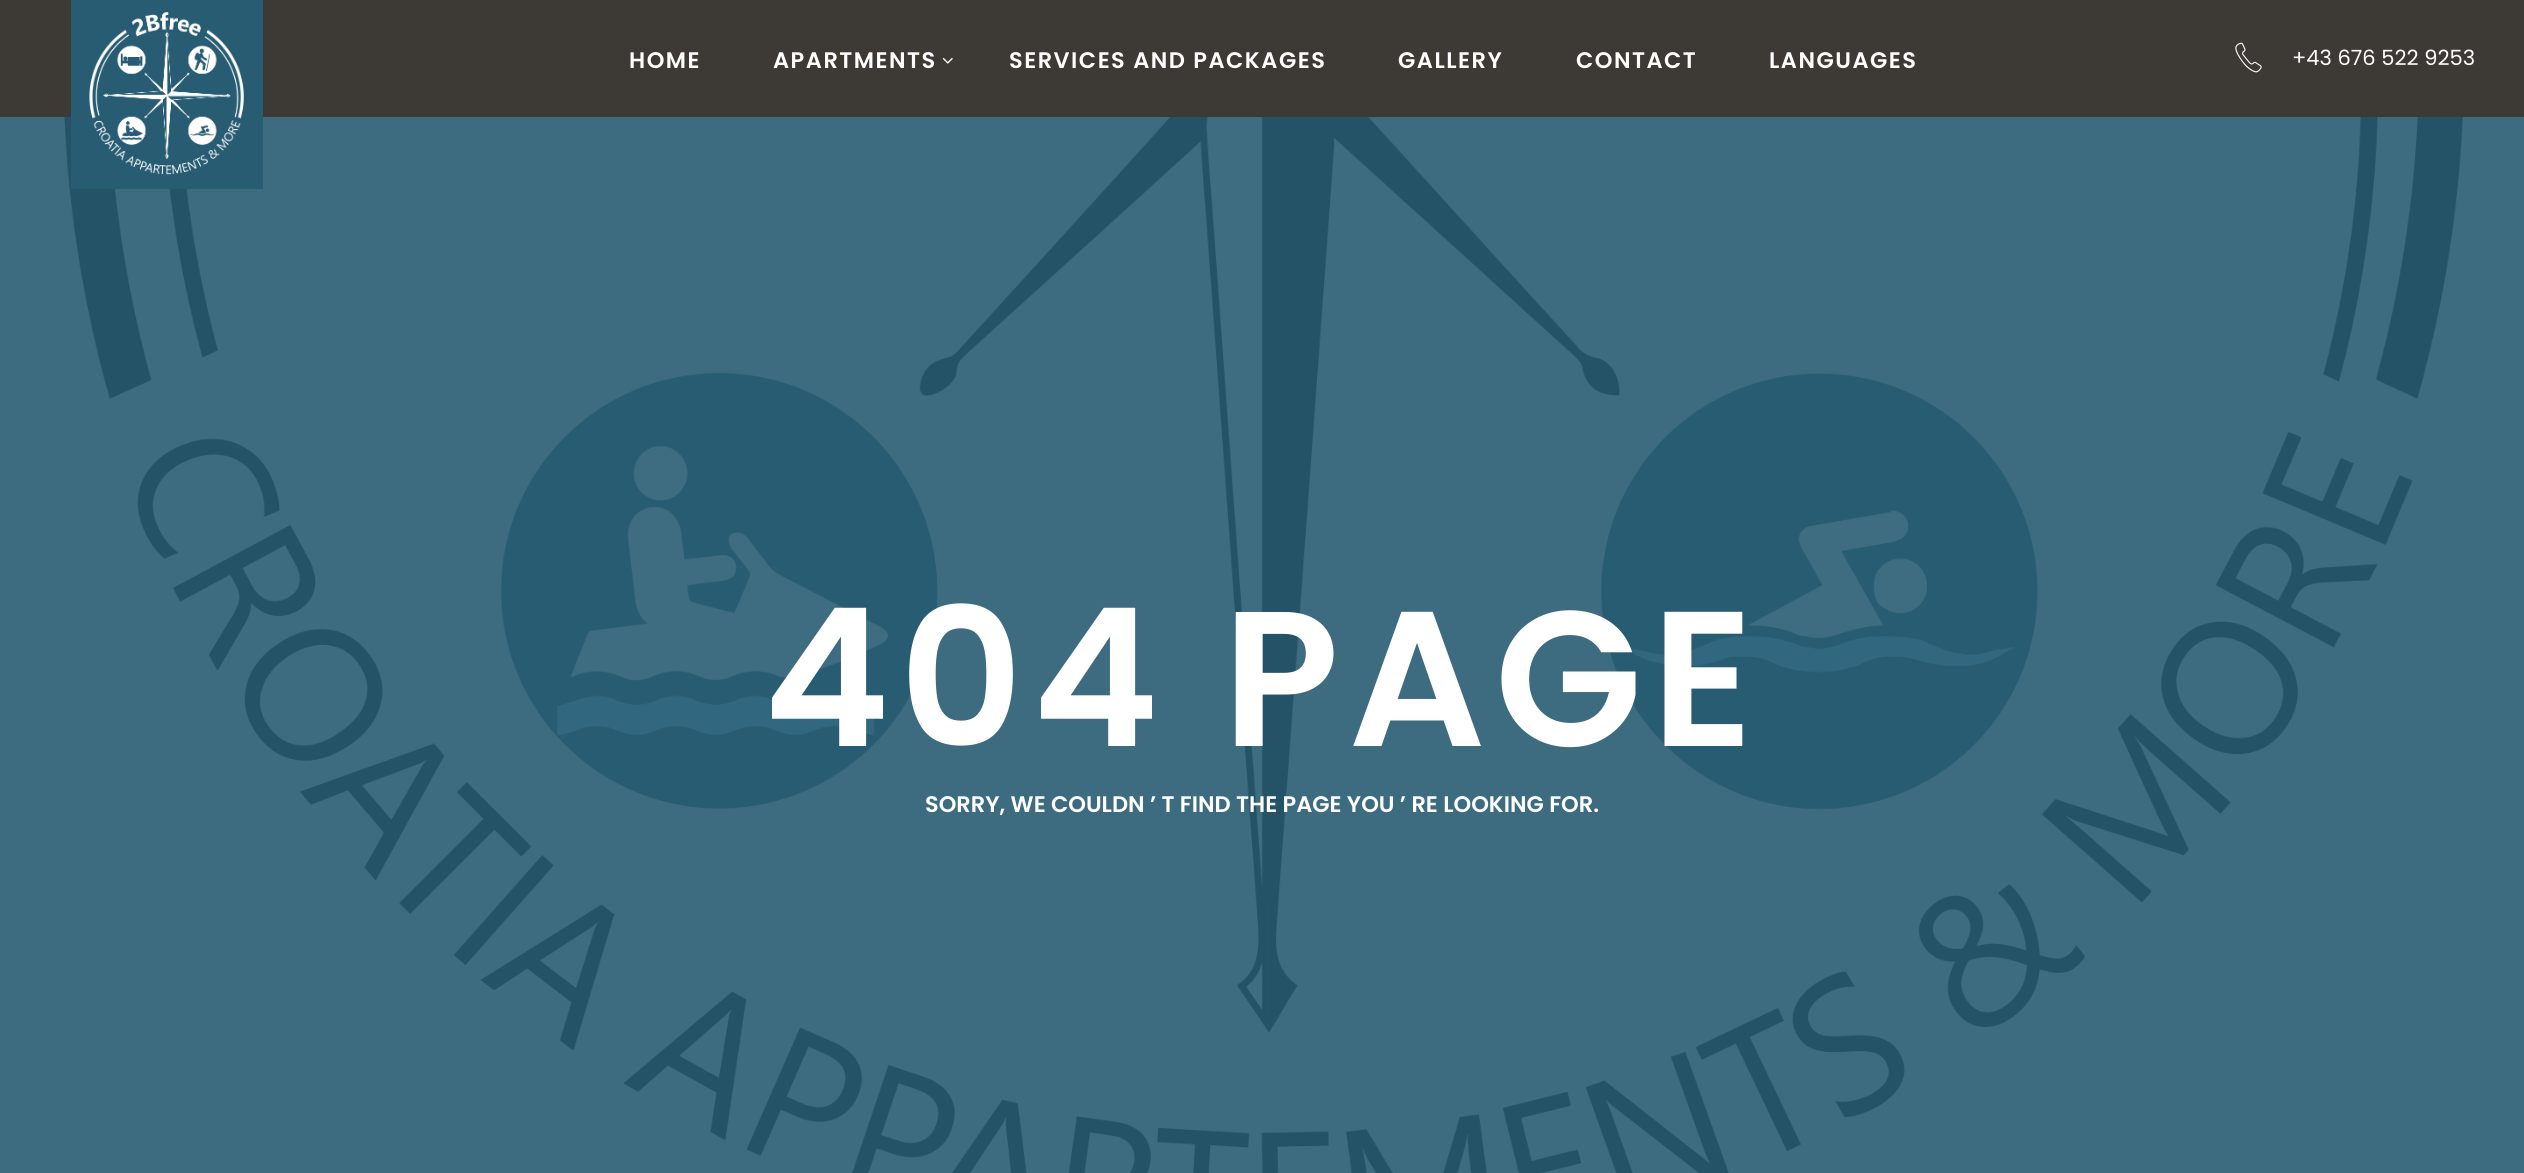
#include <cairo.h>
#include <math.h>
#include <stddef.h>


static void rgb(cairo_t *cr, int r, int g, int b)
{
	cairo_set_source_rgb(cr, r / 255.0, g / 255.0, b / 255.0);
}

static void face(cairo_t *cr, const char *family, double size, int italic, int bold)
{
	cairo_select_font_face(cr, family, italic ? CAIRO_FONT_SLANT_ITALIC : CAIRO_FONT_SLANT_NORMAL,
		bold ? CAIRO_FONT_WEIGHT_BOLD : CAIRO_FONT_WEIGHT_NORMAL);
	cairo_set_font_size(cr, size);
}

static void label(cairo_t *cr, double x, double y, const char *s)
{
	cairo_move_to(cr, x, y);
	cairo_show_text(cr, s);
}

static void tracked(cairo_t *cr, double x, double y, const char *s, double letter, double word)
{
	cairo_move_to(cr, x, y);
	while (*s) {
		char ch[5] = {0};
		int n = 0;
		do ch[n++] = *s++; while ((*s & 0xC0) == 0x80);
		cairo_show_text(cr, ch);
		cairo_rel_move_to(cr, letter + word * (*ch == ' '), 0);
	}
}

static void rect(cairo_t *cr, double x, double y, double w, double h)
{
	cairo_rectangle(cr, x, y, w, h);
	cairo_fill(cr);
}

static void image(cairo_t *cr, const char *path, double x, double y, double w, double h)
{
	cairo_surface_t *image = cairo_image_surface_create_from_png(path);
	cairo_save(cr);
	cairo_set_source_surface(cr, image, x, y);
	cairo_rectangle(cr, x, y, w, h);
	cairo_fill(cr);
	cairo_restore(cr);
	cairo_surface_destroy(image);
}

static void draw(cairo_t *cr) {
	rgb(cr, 61, 108, 129);
	cairo_paint(cr);
	rgb(cr, 61, 57, 53);
	rect(cr, 0, 0, 2524, 117);
	image(cr, "image3.png", 64, 117, 2399, 1056);
	rgb(cr, 40, 92, 115);
	rect(cr, 71, 0, 192, 189);
	image(cr, "image0.png", 89, 12, 155, 163);
	face(cr, "Poppins SemiBold", 22.5, 0, 0);
	rgb(cr, 255, 255, 255);
	tracked(cr, 629, 68, "HOME", 1.5, 0);
	tracked(cr, 773, 68, "APARTMENTS", 1.5, 0);
	image(cr, "image1.png", 942, 57, 11, 7);
	tracked(cr, 1009, 68, "SERVICES AND PACKAGES", 1.5, 0);
	tracked(cr, 1398, 68, "GALLERY", 1.5, 0);
	tracked(cr, 1576, 68, "CONTACT", 1.5, 0);
	tracked(cr, 1769, 68, "LANGUAGES", 1.5, 0);
	image(cr, "image2.png", 2235, 42, 27, 31);
	face(cr, "Poppins", 21, 0, 0);
	label(cr, 2292, 65, "+43 676 522 9253");
	face(cr, "Poppins SemiBold", 192, 0, 0);
	tracked(cr, 763, 746, "404 PAGE", 9, 0);
	face(cr, "Poppins SemiBold", 22.5, 0, 0);
	label(cr, 925, 812, "SORRY, WE COULDN ’ T FIND THE PAGE YOU ’ RE LOOKING FOR.");
}

int main(void) {
	cairo_surface_t *surface = cairo_image_surface_create(CAIRO_FORMAT_RGB24, 2524, 1173);
	cairo_t *cr = cairo_create(surface);
	cairo_font_options_t *options = cairo_font_options_create();
	cairo_font_options_set_hint_metrics(options, CAIRO_HINT_METRICS_OFF);
	cairo_font_options_set_hint_style(options, CAIRO_HINT_STYLE_NONE);
	cairo_set_font_options(cr, options);
	cairo_set_miter_limit(cr, 4);
	draw(cr);
	cairo_surface_write_to_png(surface, "render.png");
	cairo_font_options_destroy(options);
	cairo_destroy(cr);
	cairo_surface_destroy(surface);
	return 0;
}
